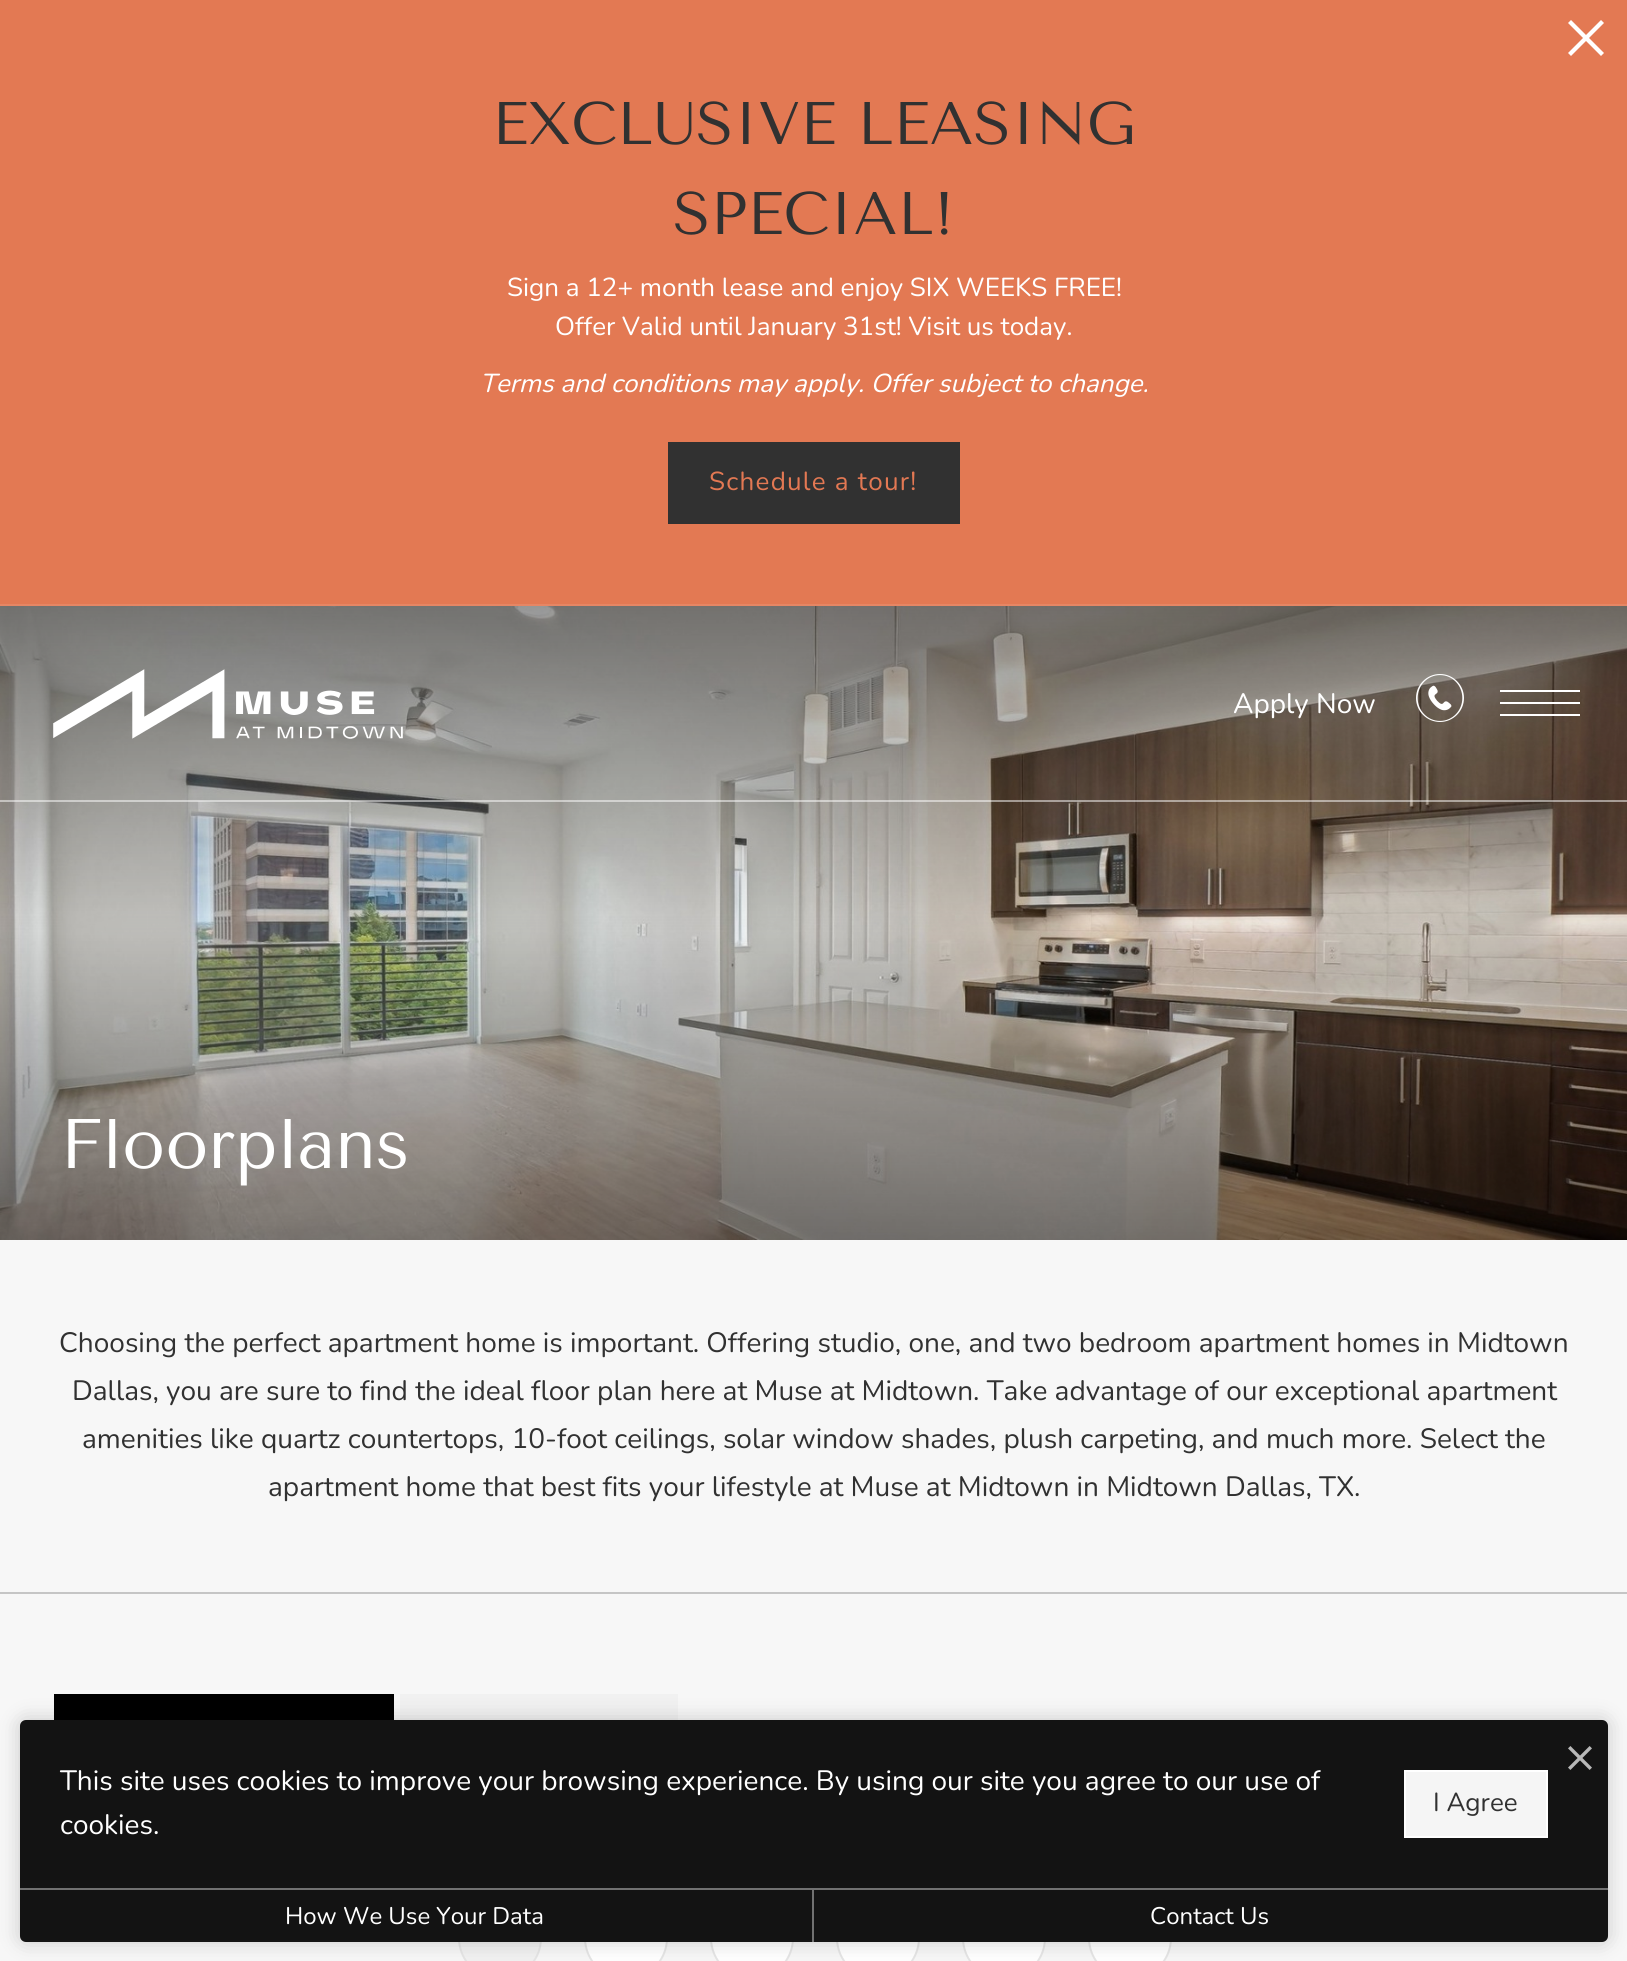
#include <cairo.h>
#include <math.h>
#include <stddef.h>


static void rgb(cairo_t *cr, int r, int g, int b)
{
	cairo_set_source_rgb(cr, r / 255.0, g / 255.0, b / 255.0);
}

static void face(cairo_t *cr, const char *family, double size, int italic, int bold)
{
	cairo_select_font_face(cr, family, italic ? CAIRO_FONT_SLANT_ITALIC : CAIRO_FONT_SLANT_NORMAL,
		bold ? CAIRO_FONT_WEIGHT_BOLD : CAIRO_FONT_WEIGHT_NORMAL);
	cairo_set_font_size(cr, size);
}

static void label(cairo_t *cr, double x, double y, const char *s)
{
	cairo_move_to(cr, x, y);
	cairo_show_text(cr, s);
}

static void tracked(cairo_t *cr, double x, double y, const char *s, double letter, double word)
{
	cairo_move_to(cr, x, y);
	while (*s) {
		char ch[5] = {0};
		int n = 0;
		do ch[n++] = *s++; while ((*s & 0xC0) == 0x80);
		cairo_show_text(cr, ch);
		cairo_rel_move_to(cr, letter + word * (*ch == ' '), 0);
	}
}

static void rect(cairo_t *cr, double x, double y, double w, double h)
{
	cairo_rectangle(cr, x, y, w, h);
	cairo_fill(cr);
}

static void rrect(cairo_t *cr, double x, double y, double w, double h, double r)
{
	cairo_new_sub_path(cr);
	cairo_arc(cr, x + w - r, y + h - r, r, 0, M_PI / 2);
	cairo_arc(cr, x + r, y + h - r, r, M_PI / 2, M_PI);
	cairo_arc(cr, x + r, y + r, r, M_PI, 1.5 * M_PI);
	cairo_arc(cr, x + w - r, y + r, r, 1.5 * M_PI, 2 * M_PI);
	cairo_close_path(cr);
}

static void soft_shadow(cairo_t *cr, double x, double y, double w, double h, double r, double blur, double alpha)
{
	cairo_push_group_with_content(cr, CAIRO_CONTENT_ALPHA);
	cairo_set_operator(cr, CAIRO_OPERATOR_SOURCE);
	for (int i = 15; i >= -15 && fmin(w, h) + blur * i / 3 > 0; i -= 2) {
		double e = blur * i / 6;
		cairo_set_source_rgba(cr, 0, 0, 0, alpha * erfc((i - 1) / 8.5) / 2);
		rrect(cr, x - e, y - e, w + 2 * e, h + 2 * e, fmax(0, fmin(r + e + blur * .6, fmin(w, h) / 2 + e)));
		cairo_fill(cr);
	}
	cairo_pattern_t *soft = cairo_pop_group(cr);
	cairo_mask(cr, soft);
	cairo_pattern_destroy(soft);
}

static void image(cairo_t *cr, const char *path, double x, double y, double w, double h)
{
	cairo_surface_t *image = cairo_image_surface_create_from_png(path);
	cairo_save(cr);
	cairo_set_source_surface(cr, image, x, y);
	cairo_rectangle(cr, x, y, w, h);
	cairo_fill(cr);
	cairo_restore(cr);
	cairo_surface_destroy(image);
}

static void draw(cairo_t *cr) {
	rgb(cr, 227, 121, 83);
	cairo_paint(cr);
	rgb(cr, 230, 134, 100);
	rect(cr, 0, 604, 1627, 2);
	rgb(cr, 255, 255, 255);
	cairo_new_path(cr);
	cairo_move_to(cr, 1586, 35);
	cairo_line_to(cr, 1571, 20);
	cairo_line_to(cr, 1568, 23);
	cairo_line_to(cr, 1583, 38);
	cairo_line_to(cr, 1568, 53);
	cairo_line_to(cr, 1571, 56);
	cairo_line_to(cr, 1586, 41);
	cairo_line_to(cr, 1601, 56);
	cairo_line_to(cr, 1604, 53);
	cairo_line_to(cr, 1589, 38);
	cairo_line_to(cr, 1604, 23);
	cairo_line_to(cr, 1601, 20);
	cairo_close_path(cr);
	cairo_fill(cr);
	face(cr, "Tenor Sans", 60, 0, 0);
	rgb(cr, 49, 49, 49);
	label(cr, 492, 144, "EXCLUSIVE LEASING");
	label(cr, 673, 234, "SPECIAL!");
	face(cr, "Nunito", 26, 0, 0);
	rgb(cr, 255, 255, 255);
	label(cr, 507, 296, "Sign a 12+ month lease and enjoy SIX WEEKS FREE!");
	label(cr, 555, 335, "Offer Valid until January 31st! Visit us today.");
	face(cr, "Nunito", 26, 1, 0);
	label(cr, 480, 392, "Terms and conditions may apply. Offer subject to change.");
	rgb(cr, 49, 49, 49);
	rect(cr, 668, 442, 292, 82);
	face(cr, "Nunito", 26, 0, 0);
	rgb(cr, 227, 120, 83);
	tracked(cr, 709, 490, "Schedule a tour!", 1.25, 0);
	rgb(cr, 247, 247, 247);
	rect(cr, 0, 1240, 1627, 721);
	image(cr, "image2.png", 0, 606, 1627, 634);
	cairo_set_source_rgba(cr, 1, 1, 1, 0.5);
	rect(cr, 0, 800, 1627, 2);
	image(cr, "image0.png", 53, 669, 350, 70);
	face(cr, "Nunito", 28, 0, 0);
	rgb(cr, 255, 255, 255);
	label(cr, 1233, 713, "Apply Now");
	image(cr, "image1.png", 1416, 674, 48, 48);
	rect(cr, 1500, 690, 80, 2);
	rect(cr, 1500, 702, 80, 2);
	rect(cr, 1500, 714, 80, 2);
	face(cr, "Tenor Sans", 70, 0, 0);
	label(cr, 60, 1168, "Floorplans");
	rgb(cr, 197, 197, 197);
	rect(cr, 0, 1592, 1627, 2);
	face(cr, "Nunito", 28, 0, 0);
	rgb(cr, 49, 49, 49);
	label(cr, 59, 1352, "Choosing the perfect apartment home is important. Offering studio, one, and two bedroom apartment homes in Midtown");
	label(cr, 72, 1400, "Dallas, you are sure to find the ideal floor plan here at Muse at Midtown. Take advantage of our exceptional apartment");
	label(cr, 82, 1448, "amenities like quartz countertops, 10-foot ceilings, solar window shades, plush carpeting, and much more. Select the");
	label(cr, 268, 1496, "apartment home that best fits your lifestyle at Muse at Midtown in Midtown Dallas, TX.");
	rgb(cr, 0, 0, 0);
	rect(cr, 54, 1694, 340, 26);
	rgb(cr, 241, 241, 241);
	rect(cr, 400, 1694, 278, 26);
	cairo_new_path(cr);
	cairo_arc(cr, 500, 1938, 41, 0, 2 * M_PI);
	cairo_fill_preserve(cr);
	rgb(cr, 229, 229, 229);
	cairo_stroke(cr);
	rgb(cr, 255, 255, 255);
	cairo_arc(cr, 626, 1938, 41, 0, 2 * M_PI);
	cairo_fill_preserve(cr);
	rgb(cr, 229, 229, 229);
	cairo_stroke(cr);
	rgb(cr, 255, 255, 255);
	cairo_arc(cr, 752, 1938, 41, 0, 2 * M_PI);
	cairo_fill_preserve(cr);
	rgb(cr, 229, 229, 229);
	cairo_stroke(cr);
	rgb(cr, 255, 255, 255);
	cairo_arc(cr, 878, 1938, 41, 0, 2 * M_PI);
	cairo_fill_preserve(cr);
	rgb(cr, 229, 229, 229);
	cairo_stroke(cr);
	rgb(cr, 255, 255, 255);
	cairo_arc(cr, 1004, 1938, 41, 0, 2 * M_PI);
	cairo_fill_preserve(cr);
	rgb(cr, 229, 229, 229);
	cairo_stroke(cr);
	rgb(cr, 255, 255, 255);
	cairo_arc(cr, 1130, 1938, 41, 0, 2 * M_PI);
	cairo_fill_preserve(cr);
	rgb(cr, 229, 229, 229);
	cairo_stroke(cr);
	rgb(cr, 0, 0, 0);
	soft_shadow(cr, 20, 1720, 1588, 222, 6, 10, 0.2);
	rgb(cr, 19, 19, 19);
	rrect(cr, 20, 1720, 1588, 222, 6);
	cairo_fill(cr);
	image(cr, "image3.png", 1568, 1746, 24, 24);
	rgb(cr, 255, 255, 255);
	label(cr, 60, 1790, "This site uses cookies to improve your browsing experience. By using our site you agree to our use of");
	label(cr, 60, 1834, "cookies.");
	rgb(cr, 245, 245, 245);
	cairo_rectangle(cr, 1405, 1771, 142, 66);
	cairo_fill_preserve(cr);
	rgb(cr, 255, 255, 255);
	cairo_stroke(cr);
	face(cr, "Nunito", 26, 0, 0);
	rgb(cr, 49, 49, 49);
	label(cr, 1433, 1811, "I Agree");
	rgb(cr, 113, 113, 113);
	rect(cr, 20, 1888, 1588, 2);
	rect(cr, 812, 1890, 2, 52);
	face(cr, "Nunito", 24, 0, 0);
	rgb(cr, 255, 255, 255);
	label(cr, 285, 1924, "How We Use Your Data");
	label(cr, 1150, 1924, "Contact Us");
}

int main(void) {
	cairo_surface_t *surface = cairo_image_surface_create(CAIRO_FORMAT_RGB24, 1627, 1961);
	cairo_t *cr = cairo_create(surface);
	cairo_font_options_t *options = cairo_font_options_create();
	cairo_font_options_set_hint_metrics(options, CAIRO_HINT_METRICS_OFF);
	cairo_font_options_set_hint_style(options, CAIRO_HINT_STYLE_NONE);
	cairo_set_font_options(cr, options);
	cairo_set_miter_limit(cr, 4);
	draw(cr);
	cairo_surface_write_to_png(surface, "render.png");
	cairo_font_options_destroy(options);
	cairo_destroy(cr);
	cairo_surface_destroy(surface);
	return 0;
}
